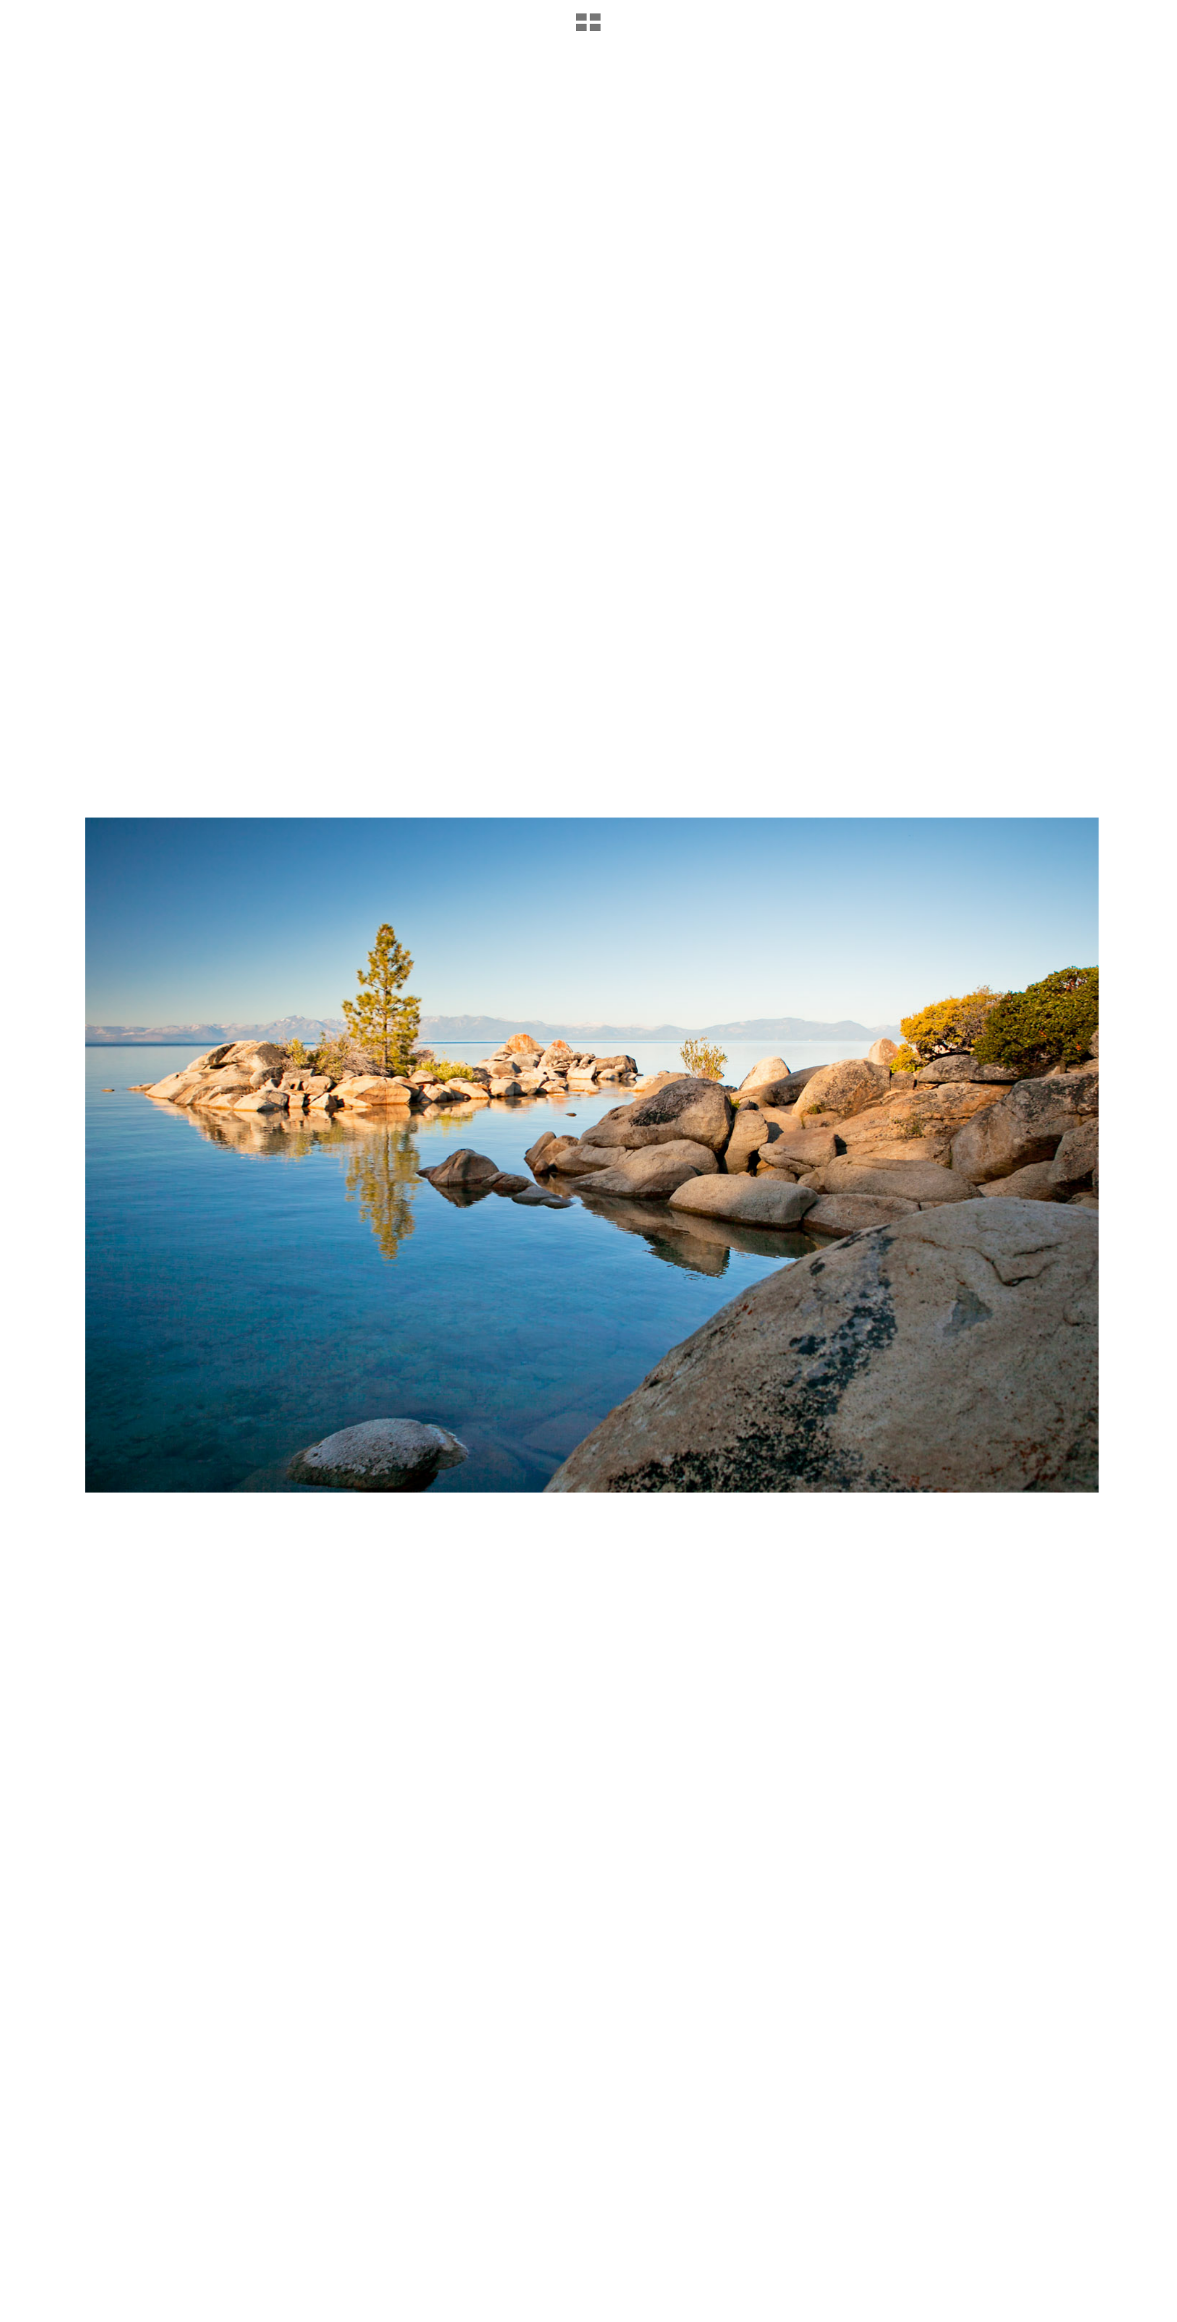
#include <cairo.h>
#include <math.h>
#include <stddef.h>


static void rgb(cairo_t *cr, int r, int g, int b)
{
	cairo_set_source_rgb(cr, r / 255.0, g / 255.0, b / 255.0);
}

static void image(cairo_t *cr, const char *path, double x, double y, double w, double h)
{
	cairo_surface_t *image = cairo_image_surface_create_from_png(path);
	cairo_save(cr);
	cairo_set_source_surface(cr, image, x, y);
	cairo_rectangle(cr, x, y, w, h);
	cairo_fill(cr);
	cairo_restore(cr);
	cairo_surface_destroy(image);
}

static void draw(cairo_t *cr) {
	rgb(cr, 255, 255, 255);
	cairo_paint(cr);
	image(cr, "image0.png", 576, 13, 25, 18);
	image(cr, "image1.png", 85, 817, 1015, 676);
}

int main(void) {
	cairo_surface_t *surface = cairo_image_surface_create(CAIRO_FORMAT_RGB24, 1177, 2322);
	cairo_t *cr = cairo_create(surface);
	cairo_font_options_t *options = cairo_font_options_create();
	cairo_font_options_set_hint_metrics(options, CAIRO_HINT_METRICS_OFF);
	cairo_font_options_set_hint_style(options, CAIRO_HINT_STYLE_NONE);
	cairo_set_font_options(cr, options);
	cairo_set_miter_limit(cr, 4);
	draw(cr);
	cairo_surface_write_to_png(surface, "render.png");
	cairo_font_options_destroy(options);
	cairo_destroy(cr);
	cairo_surface_destroy(surface);
	return 0;
}
